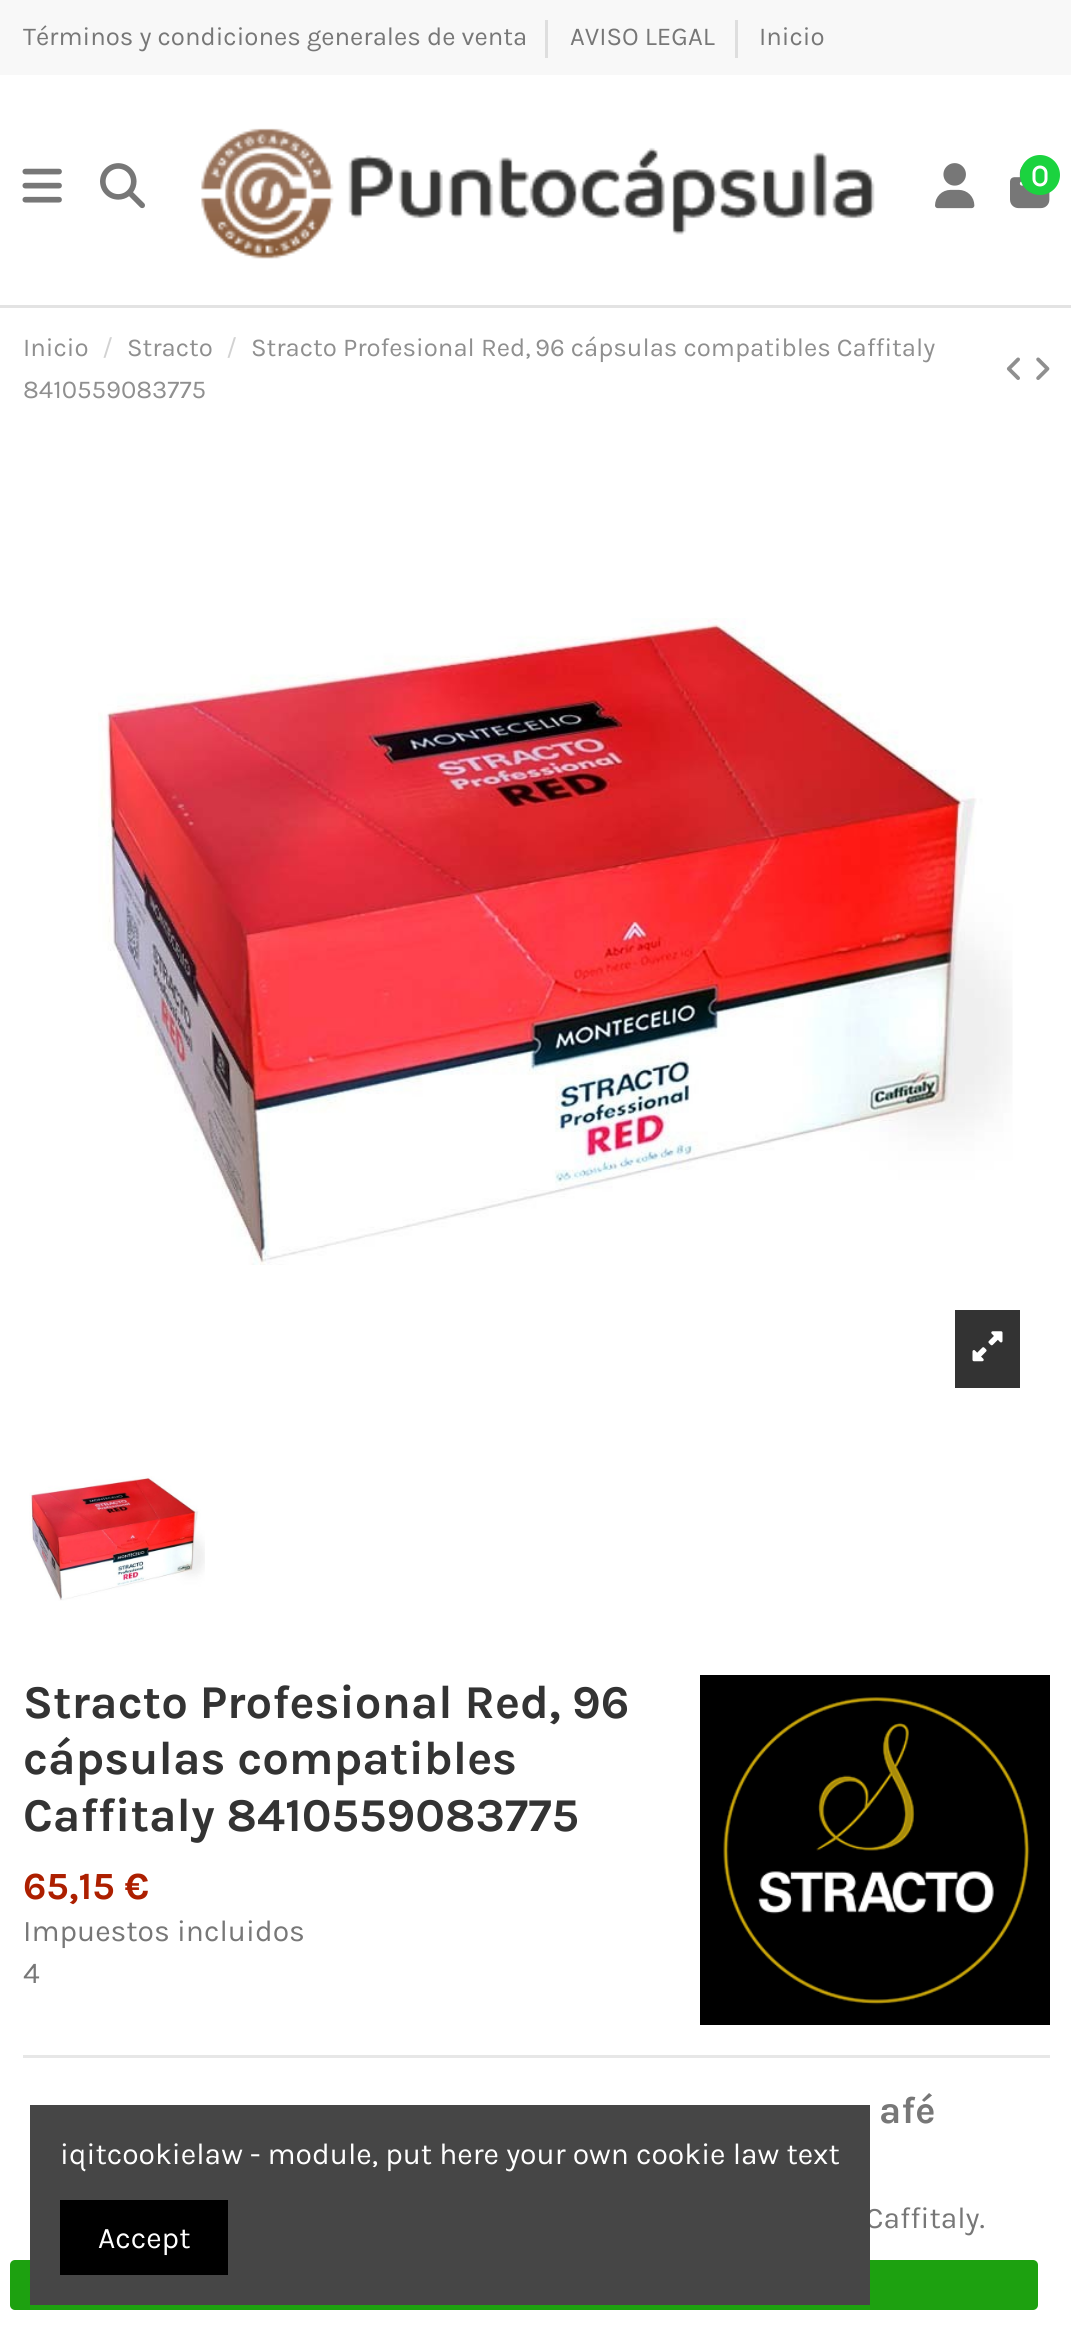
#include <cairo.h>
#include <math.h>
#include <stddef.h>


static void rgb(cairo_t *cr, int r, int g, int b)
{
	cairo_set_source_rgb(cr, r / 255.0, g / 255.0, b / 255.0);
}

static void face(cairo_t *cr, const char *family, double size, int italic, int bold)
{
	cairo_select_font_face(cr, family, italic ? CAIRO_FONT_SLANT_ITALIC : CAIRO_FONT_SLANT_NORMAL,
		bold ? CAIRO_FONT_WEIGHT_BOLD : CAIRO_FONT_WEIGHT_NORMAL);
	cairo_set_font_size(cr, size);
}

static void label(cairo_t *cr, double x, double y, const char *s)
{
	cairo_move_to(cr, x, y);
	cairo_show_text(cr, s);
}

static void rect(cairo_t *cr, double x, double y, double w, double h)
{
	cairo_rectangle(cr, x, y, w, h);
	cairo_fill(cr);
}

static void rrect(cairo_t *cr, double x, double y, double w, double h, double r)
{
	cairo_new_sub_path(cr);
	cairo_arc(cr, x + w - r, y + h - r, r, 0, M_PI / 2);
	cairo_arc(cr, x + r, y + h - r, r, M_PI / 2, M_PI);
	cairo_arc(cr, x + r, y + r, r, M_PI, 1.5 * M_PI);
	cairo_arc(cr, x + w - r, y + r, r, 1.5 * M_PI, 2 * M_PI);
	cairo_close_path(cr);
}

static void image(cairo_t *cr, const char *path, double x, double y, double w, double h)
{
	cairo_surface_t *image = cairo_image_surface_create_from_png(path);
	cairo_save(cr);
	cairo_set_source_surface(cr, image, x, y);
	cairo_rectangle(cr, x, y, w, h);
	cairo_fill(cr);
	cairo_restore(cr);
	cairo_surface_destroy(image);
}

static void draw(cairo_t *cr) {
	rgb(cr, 255, 255, 255);
	cairo_paint(cr);
	rgb(cr, 248, 248, 248);
	rect(cr, 0, 0, 1071, 75);
	face(cr, "Karla", 25.75, 0, 0);
	rgb(cr, 119, 119, 119);
	label(cr, 23, 45, "Términos y condiciones generales de venta");
	rgb(cr, 222, 222, 222);
	rect(cr, 545, 20, 3, 38);
	rgb(cr, 119, 119, 119);
	label(cr, 570, 45, "AVISO LEGAL");
	rgb(cr, 222, 222, 222);
	rect(cr, 735, 20, 3, 38);
	rgb(cr, 119, 119, 119);
	label(cr, 759, 45, "Inicio");
	rgb(cr, 227, 227, 227);
	rect(cr, 0, 305, 1071, 3);
	image(cr, "image0.png", 22, 168, 40, 35);
	image(cr, "image1.png", 100, 163, 45, 46);
	image(cr, "image2.png", 201, 128, 674, 131);
	image(cr, "image3.png", 935, 163, 40, 46);
	image(cr, "image5.png", 1010, 166, 40, 43);
	rgb(cr, 27, 211, 63);
	cairo_arc(cr, 1040, 175, 20, 0, 2 * M_PI);
	cairo_fill(cr);
	image(cr, "image4.png", 1032, 165, 16, 22);
	rgb(cr, 143, 143, 143);
	label(cr, 23, 356, "Inicio");
	rgb(cr, 210, 210, 210);
	label(cr, 102, 356, "/");
	rgb(cr, 143, 143, 143);
	label(cr, 127, 356, "Stracto");
	rgb(cr, 210, 210, 210);
	label(cr, 226, 356, "/");
	rgb(cr, 143, 143, 143);
	label(cr, 251, 356, "Stracto Profesional Red,");
	label(cr, 535, 356, "96 cápsulas compatibles Caffitaly");
	label(cr, 23, 398, "8410559083775");
	image(cr, "image6.png", 1006, 357, 14, 23);
	image(cr, "image7.png", 1036, 357, 14, 23);
	image(cr, "image8.png", 98, 618, 915, 647);
	rgb(cr, 51, 51, 51);
	rect(cr, 955, 1310, 65, 78);
	image(cr, "image9.png", 972, 1331, 31, 31);
	image(cr, "image10.png", 29, 1476, 176, 125);
	rgb(cr, 231, 231, 231);
	rect(cr, 23, 2055, 1027, 3);
	face(cr, "Karla", 47.1, 0, 1);
	rgb(cr, 51, 51, 51);
	label(cr, 23, 1718, "Stracto Profesional Red,");
	label(cr, 572, 1718, "96");
	label(cr, 23, 1774, "cápsulas compatibles");
	label(cr, 23, 1831, "Caffitaly 8410559083775");
	image(cr, "image11.png", 700, 1675, 350, 350);
	face(cr, "Karla", 38.5, 0, 1);
	rgb(cr, 173, 31, 0);
	label(cr, 23, 1899, "65,15 €");
	face(cr, "Karla", 30, 0, 0);
	rgb(cr, 119, 119, 119);
	label(cr, 23, 1941, "Impuestos incluidos");
	label(cr, 23, 1983, "4");
	face(cr, "Karla", 38, 0, 1);
	label(cr, 879, 2123, "afé");
	face(cr, "Karla", 30, 0, 0);
	label(cr, 865, 2228, "Caffitaly.");
	rgb(cr, 29, 161, 16);
	rrect(cr, 10, 2260, 1028, 50, 5);
	cairo_fill(cr);
	rgb(cr, 70, 70, 70);
	rect(cr, 30, 2105, 840, 200);
	rgb(cr, 255, 255, 255);
	label(cr, 60, 2164, "iqitcookielaw - module, put here your own cookie law text");
	rgb(cr, 0, 0, 0);
	rect(cr, 60, 2200, 168, 75);
	rgb(cr, 255, 255, 255);
	label(cr, 98, 2248, "Accept");
}

int main(void) {
	cairo_surface_t *surface = cairo_image_surface_create(CAIRO_FORMAT_RGB24, 1071, 2334);
	cairo_t *cr = cairo_create(surface);
	cairo_font_options_t *options = cairo_font_options_create();
	cairo_font_options_set_hint_metrics(options, CAIRO_HINT_METRICS_OFF);
	cairo_font_options_set_hint_style(options, CAIRO_HINT_STYLE_NONE);
	cairo_set_font_options(cr, options);
	cairo_set_miter_limit(cr, 4);
	draw(cr);
	cairo_surface_write_to_png(surface, "render.png");
	cairo_font_options_destroy(options);
	cairo_destroy(cr);
	cairo_surface_destroy(surface);
	return 0;
}
